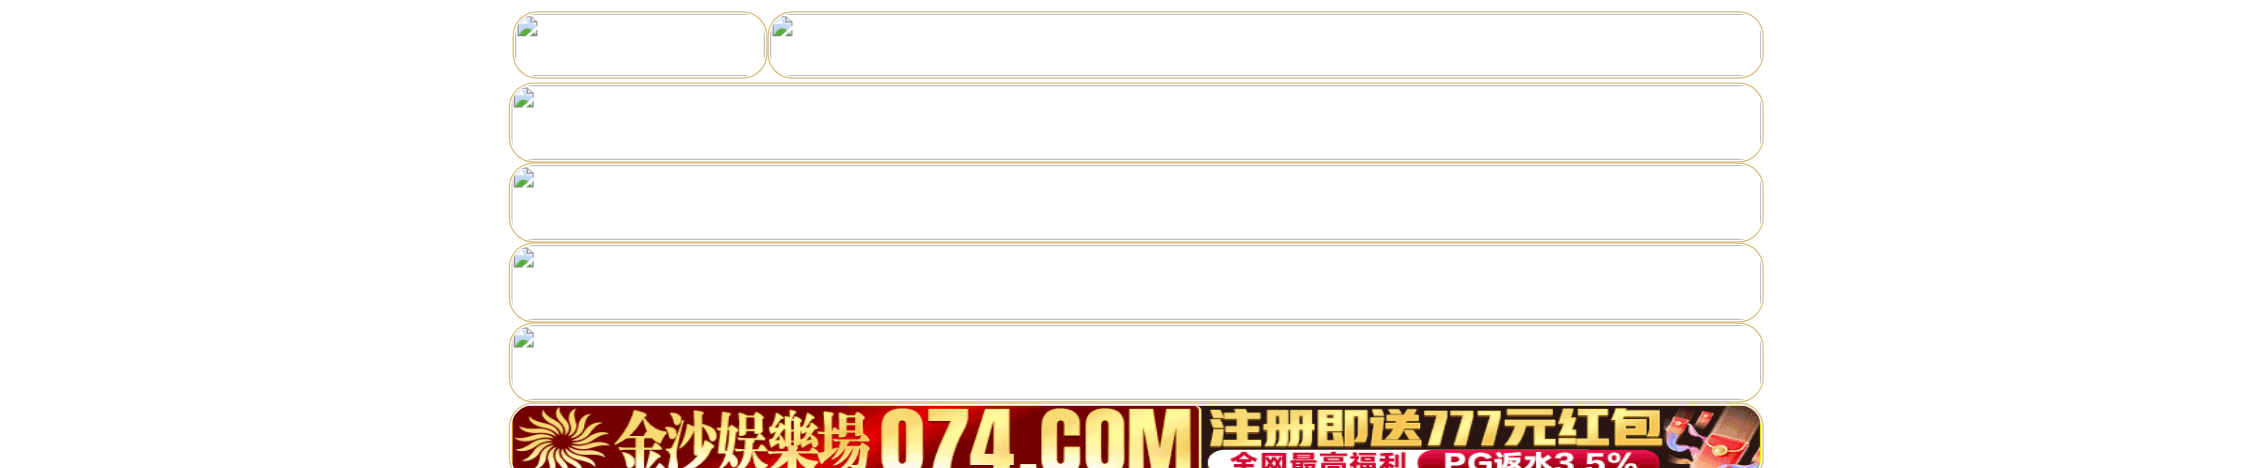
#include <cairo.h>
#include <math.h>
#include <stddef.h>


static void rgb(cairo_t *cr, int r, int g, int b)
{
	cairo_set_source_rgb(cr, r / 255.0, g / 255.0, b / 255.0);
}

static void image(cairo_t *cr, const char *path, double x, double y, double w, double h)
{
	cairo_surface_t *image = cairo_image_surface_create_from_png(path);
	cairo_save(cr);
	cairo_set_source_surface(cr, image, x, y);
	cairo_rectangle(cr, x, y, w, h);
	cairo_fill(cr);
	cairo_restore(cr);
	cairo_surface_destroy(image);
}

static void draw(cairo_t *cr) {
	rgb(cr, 255, 255, 255);
	cairo_paint(cr);
	image(cr, "image0.png", 508, 11, 1256, 457);
}

int main(void) {
	cairo_surface_t *surface = cairo_image_surface_create(CAIRO_FORMAT_RGB24, 2252, 468);
	cairo_t *cr = cairo_create(surface);
	cairo_font_options_t *options = cairo_font_options_create();
	cairo_font_options_set_hint_metrics(options, CAIRO_HINT_METRICS_OFF);
	cairo_font_options_set_hint_style(options, CAIRO_HINT_STYLE_NONE);
	cairo_set_font_options(cr, options);
	cairo_set_miter_limit(cr, 4);
	draw(cr);
	cairo_surface_write_to_png(surface, "render.png");
	cairo_font_options_destroy(options);
	cairo_destroy(cr);
	cairo_surface_destroy(surface);
	return 0;
}
